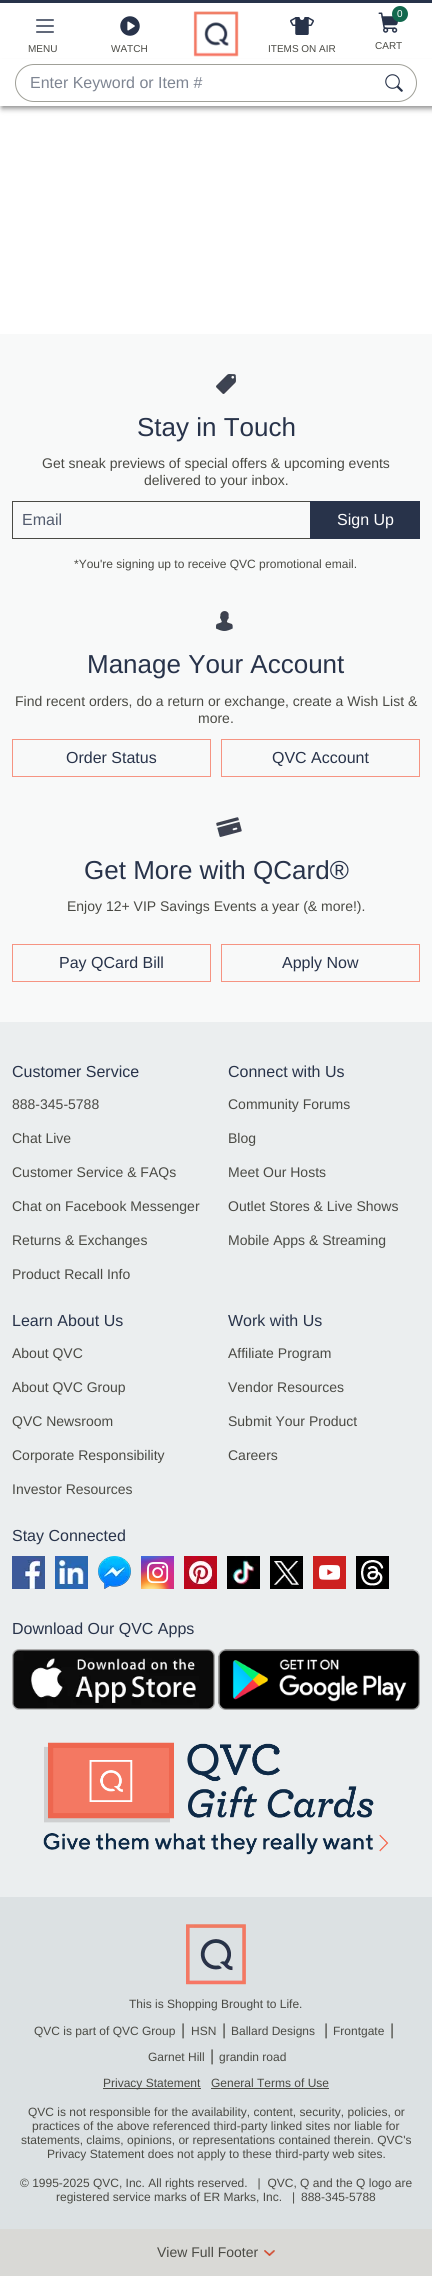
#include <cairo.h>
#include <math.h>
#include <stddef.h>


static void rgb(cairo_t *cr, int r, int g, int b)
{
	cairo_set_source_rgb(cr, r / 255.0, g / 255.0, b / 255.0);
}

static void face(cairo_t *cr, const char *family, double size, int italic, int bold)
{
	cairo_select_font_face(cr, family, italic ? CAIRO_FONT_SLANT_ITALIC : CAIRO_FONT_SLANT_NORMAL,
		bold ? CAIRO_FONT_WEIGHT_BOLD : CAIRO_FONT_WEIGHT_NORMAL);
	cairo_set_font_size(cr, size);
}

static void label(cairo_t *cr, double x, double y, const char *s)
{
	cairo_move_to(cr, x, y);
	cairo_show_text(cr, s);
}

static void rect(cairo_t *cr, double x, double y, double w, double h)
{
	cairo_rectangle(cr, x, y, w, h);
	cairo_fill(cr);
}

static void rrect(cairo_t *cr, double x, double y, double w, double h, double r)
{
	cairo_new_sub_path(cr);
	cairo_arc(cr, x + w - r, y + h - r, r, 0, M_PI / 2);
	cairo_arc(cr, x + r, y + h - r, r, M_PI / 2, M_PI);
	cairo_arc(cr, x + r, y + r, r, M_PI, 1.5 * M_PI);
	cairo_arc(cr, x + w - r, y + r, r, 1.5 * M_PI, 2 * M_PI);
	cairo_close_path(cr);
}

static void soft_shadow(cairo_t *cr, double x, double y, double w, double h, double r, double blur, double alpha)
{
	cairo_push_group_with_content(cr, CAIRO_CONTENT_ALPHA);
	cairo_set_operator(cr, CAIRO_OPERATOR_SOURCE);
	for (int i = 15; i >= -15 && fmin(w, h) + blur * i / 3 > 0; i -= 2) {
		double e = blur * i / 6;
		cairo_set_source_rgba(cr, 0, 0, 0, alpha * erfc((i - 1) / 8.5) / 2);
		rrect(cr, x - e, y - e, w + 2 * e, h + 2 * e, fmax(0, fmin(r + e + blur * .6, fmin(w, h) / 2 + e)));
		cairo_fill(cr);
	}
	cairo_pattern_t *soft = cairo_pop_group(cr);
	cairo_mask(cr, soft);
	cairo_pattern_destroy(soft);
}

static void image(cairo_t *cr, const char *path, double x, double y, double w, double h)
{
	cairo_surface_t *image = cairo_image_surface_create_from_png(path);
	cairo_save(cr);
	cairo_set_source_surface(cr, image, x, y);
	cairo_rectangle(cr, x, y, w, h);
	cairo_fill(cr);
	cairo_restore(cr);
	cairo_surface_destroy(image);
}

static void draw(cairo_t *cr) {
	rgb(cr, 255, 255, 255);
	cairo_paint(cr);
	rgb(cr, 0, 0, 0);
	soft_shadow(cr, 2, 65, 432, 43, 0, 3, 0.5);
	rgb(cr, 255, 255, 255);
	rect(cr, 0, 59, 432, 47);
	rgb(cr, 40, 51, 74);
	rect(cr, 0, 0, 432, 3);
	image(cr, "image0.png", 36, 19, 18, 14);
	face(cr, "Liberation Sans", 10, 0, 0);
	rgb(cr, 74, 74, 68);
	label(cr, 28, 52, "MENU");
	image(cr, "image1.png", 120, 16, 20, 20);
	label(cr, 111, 52, "WATCH");
	image(cr, "image2.png", 193, 11, 46, 46);
	image(cr, "image3.png", 290, 17, 24, 18);
	label(cr, 268, 52, "ITEMS ON AIR");
	image(cr, "image4.png", 378, 12, 20, 21);
	rgb(cr, 18, 104, 78);
	cairo_arc(cr, 400, 14, 8, 0, 2 * M_PI);
	cairo_fill(cr);
	rgb(cr, 255, 255, 255);
	label(cr, 397, 17, "0");
	rgb(cr, 74, 74, 68);
	label(cr, 375, 49, "CART");
	rrect(cr, 15.5, 64.5, 401, 37, 18.5);
	rgb(cr, 160, 160, 152);
	cairo_set_line_width(cr, 1);
	cairo_stroke(cr);
	face(cr, "Liberation Sans", 16, 0, 0);
	rgb(cr, 126, 133, 146);
	label(cr, 30, 88, "Enter Keyword or Item #");
	image(cr, "image5.png", 385, 74, 18, 18);
	rgb(cr, 248, 249, 249);
	rect(cr, 0, 334, 432, 688);
	image(cr, "image6.png", 216, 374, 20, 20);
	face(cr, "Liberation Sans", 26, 0, 0);
	rgb(cr, 40, 51, 74);
	label(cr, 137, 436, "Stay in Touch");
	face(cr, "Liberation Sans", 14, 0, 0);
	rgb(cr, 74, 74, 68);
	label(cr, 42, 468, "Get sneak previews of special offers & upcoming events");
	label(cr, 144, 485, "delivered to your inbox.");
	cairo_rectangle(cr, 12.5, 501.5, 407, 37);
	cairo_stroke(cr);
	face(cr, "Liberation Sans", 16, 0, 0);
	rgb(cr, 83, 92, 110);
	label(cr, 22, 525, "Email");
	rgb(cr, 40, 51, 74);
	rect(cr, 310, 501, 110, 38);
	rgb(cr, 255, 255, 255);
	label(cr, 337, 525, "Sign Up");
	face(cr, "Liberation Sans", 12, 0, 0);
	rgb(cr, 74, 74, 68);
	label(cr, 74, 568, "*You're signing up to receive QVC promotional email.");
	image(cr, "image7.png", 216, 611, 17, 20);
	face(cr, "Liberation Sans", 26, 0, 0);
	rgb(cr, 40, 51, 74);
	label(cr, 87, 673, "Manage Your Account");
	face(cr, "Liberation Sans", 14, 0, 0);
	rgb(cr, 74, 74, 68);
	label(cr, 15, 706, "Find recent orders, do a return or exchange, create a Wish List &");
	label(cr, 198, 723, "more.");
	cairo_rectangle(cr, 12.5, 739.5, 198, 37);
	rgb(cr, 246, 148, 130);
	cairo_stroke(cr);
	face(cr, "Liberation Sans", 16, 0, 0);
	rgb(cr, 40, 51, 74);
	label(cr, 66, 763, "Order Status");
	cairo_rectangle(cr, 221.5, 739.5, 198, 37);
	rgb(cr, 246, 148, 130);
	cairo_stroke(cr);
	rgb(cr, 40, 51, 74);
	label(cr, 272, 763, "QVC Account");
	image(cr, "image8.png", 216, 817, 26, 20);
	face(cr, "Liberation Sans", 26, 0, 0);
	label(cr, 84, 879, "Get More with QCard®");
	face(cr, "Liberation Sans", 14, 0, 0);
	rgb(cr, 74, 74, 68);
	label(cr, 67, 911, "Enjoy 12+ VIP Savings Events a year (& more!).");
	cairo_rectangle(cr, 12.5, 944.5, 198, 37);
	rgb(cr, 246, 148, 130);
	cairo_stroke(cr);
	face(cr, "Liberation Sans", 16, 0, 0);
	rgb(cr, 40, 51, 74);
	label(cr, 59, 968, "Pay QCard Bill");
	cairo_rectangle(cr, 221.5, 944.5, 198, 37);
	rgb(cr, 246, 148, 130);
	cairo_stroke(cr);
	rgb(cr, 40, 51, 74);
	label(cr, 282, 968, "Apply Now");
	rgb(cr, 235, 238, 239);
	rect(cr, 0, 1022, 432, 875);
	rgb(cr, 40, 51, 74);
	label(cr, 12, 1077, "Customer Service");
	face(cr, "Liberation Sans", 14, 0, 0);
	rgb(cr, 74, 74, 68);
	label(cr, 12, 1109, "888-345-5788");
	label(cr, 12, 1143, "Chat Live");
	label(cr, 12, 1177, "Customer Service & FAQs");
	label(cr, 12, 1211, "Chat on Facebook Messenger");
	label(cr, 12, 1245, "Returns & Exchanges");
	label(cr, 12, 1279, "Product Recall Info");
	face(cr, "Liberation Sans", 16, 0, 0);
	rgb(cr, 40, 51, 74);
	label(cr, 228, 1077, "Connect with Us");
	face(cr, "Liberation Sans", 14, 0, 0);
	rgb(cr, 74, 74, 68);
	label(cr, 228, 1109, "Community Forums");
	label(cr, 228, 1143, "Blog");
	label(cr, 228, 1177, "Meet Our Hosts");
	label(cr, 228, 1211, "Outlet Stores & Live Shows");
	label(cr, 228, 1245, "Mobile Apps & Streaming");
	face(cr, "Liberation Sans", 16, 0, 0);
	rgb(cr, 40, 51, 74);
	label(cr, 12, 1326, "Learn About Us");
	face(cr, "Liberation Sans", 14, 0, 0);
	rgb(cr, 74, 74, 68);
	label(cr, 12, 1358, "About QVC");
	label(cr, 12, 1392, "About QVC Group");
	label(cr, 12, 1426, "QVC Newsroom");
	label(cr, 12, 1460, "Corporate Responsibility");
	label(cr, 12, 1494, "Investor Resources");
	face(cr, "Liberation Sans", 16, 0, 0);
	rgb(cr, 40, 51, 74);
	label(cr, 228, 1326, "Work with Us");
	face(cr, "Liberation Sans", 14, 0, 0);
	rgb(cr, 74, 74, 68);
	label(cr, 228, 1358, "Affiliate Program");
	label(cr, 228, 1392, "Vendor Resources");
	label(cr, 228, 1426, "Submit Your Product");
	label(cr, 228, 1460, "Careers");
	face(cr, "Liberation Sans", 16, 0, 0);
	rgb(cr, 40, 51, 74);
	label(cr, 12, 1541, "Stay Connected");
	image(cr, "image9.png", 12, 1556, 33, 33);
	image(cr, "image10.png", 55, 1556, 33, 33);
	image(cr, "image11.png", 98, 1556, 33, 33);
	image(cr, "image12.png", 141, 1556, 33, 33);
	image(cr, "image13.png", 184, 1556, 33, 33);
	image(cr, "image14.png", 227, 1556, 33, 33);
	image(cr, "image15.png", 270, 1556, 33, 33);
	image(cr, "image16.png", 313, 1556, 33, 33);
	image(cr, "image17.png", 356, 1556, 33, 33);
	label(cr, 12, 1634, "Download Our QVC Apps");
	image(cr, "image18.png", 12, 1649, 203, 61);
	image(cr, "image19.png", 218, 1649, 202, 61);
	image(cr, "image20.png", 43, 1742, 346, 113);
	rgb(cr, 220, 225, 227);
	rect(cr, 0, 1897, 432, 332);
	image(cr, "image21.png", 186, 1924, 60, 61);
	face(cr, "Liberation Sans", 12, 0, 0);
	rgb(cr, 74, 74, 68);
	label(cr, 129, 2008, "This is Shopping Brought to Life.");
	label(cr, 34, 2035, "QVC is part of QVC Group");
	face(cr, "Liberation Sans", 16, 0, 0);
	label(cr, 181, 2035, "|");
	face(cr, "Liberation Sans", 12, 0, 0);
	label(cr, 191, 2035, "HSN");
	face(cr, "Liberation Sans", 16, 0, 0);
	label(cr, 222, 2035, "|");
	face(cr, "Liberation Sans", 12, 0, 0);
	label(cr, 231, 2035, "Ballard Designs");
	face(cr, "Liberation Sans", 16, 0, 0);
	label(cr, 324, 2035, "|");
	face(cr, "Liberation Sans", 12, 0, 0);
	label(cr, 333, 2035, "Frontgate");
	face(cr, "Liberation Sans", 16, 0, 0);
	label(cr, 390, 2035, "|");
	face(cr, "Liberation Sans", 12, 0, 0);
	label(cr, 148, 2061, "Garnet Hill");
	face(cr, "Liberation Sans", 16, 0, 0);
	label(cr, 210, 2061, "|");
	face(cr, "Liberation Sans", 12, 0, 0);
	label(cr, 219, 2061, "grandin road");
	rect(cr, 103, 2088, 98, 1);
	label(cr, 103, 2087, "Privacy Statement");
	label(cr, 211, 2087, "General Terms of Use");
	rect(cr, 211, 2088, 118, 1);
	label(cr, 28, 2116, "QVC is not responsible for the availability, content, security, policies, or");
	label(cr, 32, 2130, "practices of the above referenced third-party linked sites nor liable for");
	label(cr, 21, 2144, "statements, claims, opinions, or representations contained therein. QVC's");
	label(cr, 47, 2158, "Privacy Statement does not apply to these third-party web sites.");
	label(cr, 20, 2187, "© 1995-2025 QVC, Inc. All rights reserved.   |  QVC, Q and the Q logo are");
	label(cr, 56, 2201, "registered service marks of ER Marks, Inc.");
	label(cr, 292, 2201, "|");
	label(cr, 301, 2201, "888-345-5788");
	rgb(cr, 217, 217, 214);
	rect(cr, 0, 2229, 432, 47);
	face(cr, "Liberation Sans", 14, 0, 0);
	rgb(cr, 74, 74, 68);
	label(cr, 157, 2257, "View Full Footer");
	image(cr, "image22.png", 264, 2250, 11, 6);
}

int main(void) {
	cairo_surface_t *surface = cairo_image_surface_create(CAIRO_FORMAT_RGB24, 432, 2276);
	cairo_t *cr = cairo_create(surface);
	cairo_font_options_t *options = cairo_font_options_create();
	cairo_font_options_set_hint_metrics(options, CAIRO_HINT_METRICS_OFF);
	cairo_font_options_set_hint_style(options, CAIRO_HINT_STYLE_NONE);
	cairo_set_font_options(cr, options);
	cairo_set_miter_limit(cr, 4);
	draw(cr);
	cairo_surface_write_to_png(surface, "render.png");
	cairo_font_options_destroy(options);
	cairo_destroy(cr);
	cairo_surface_destroy(surface);
	return 0;
}
